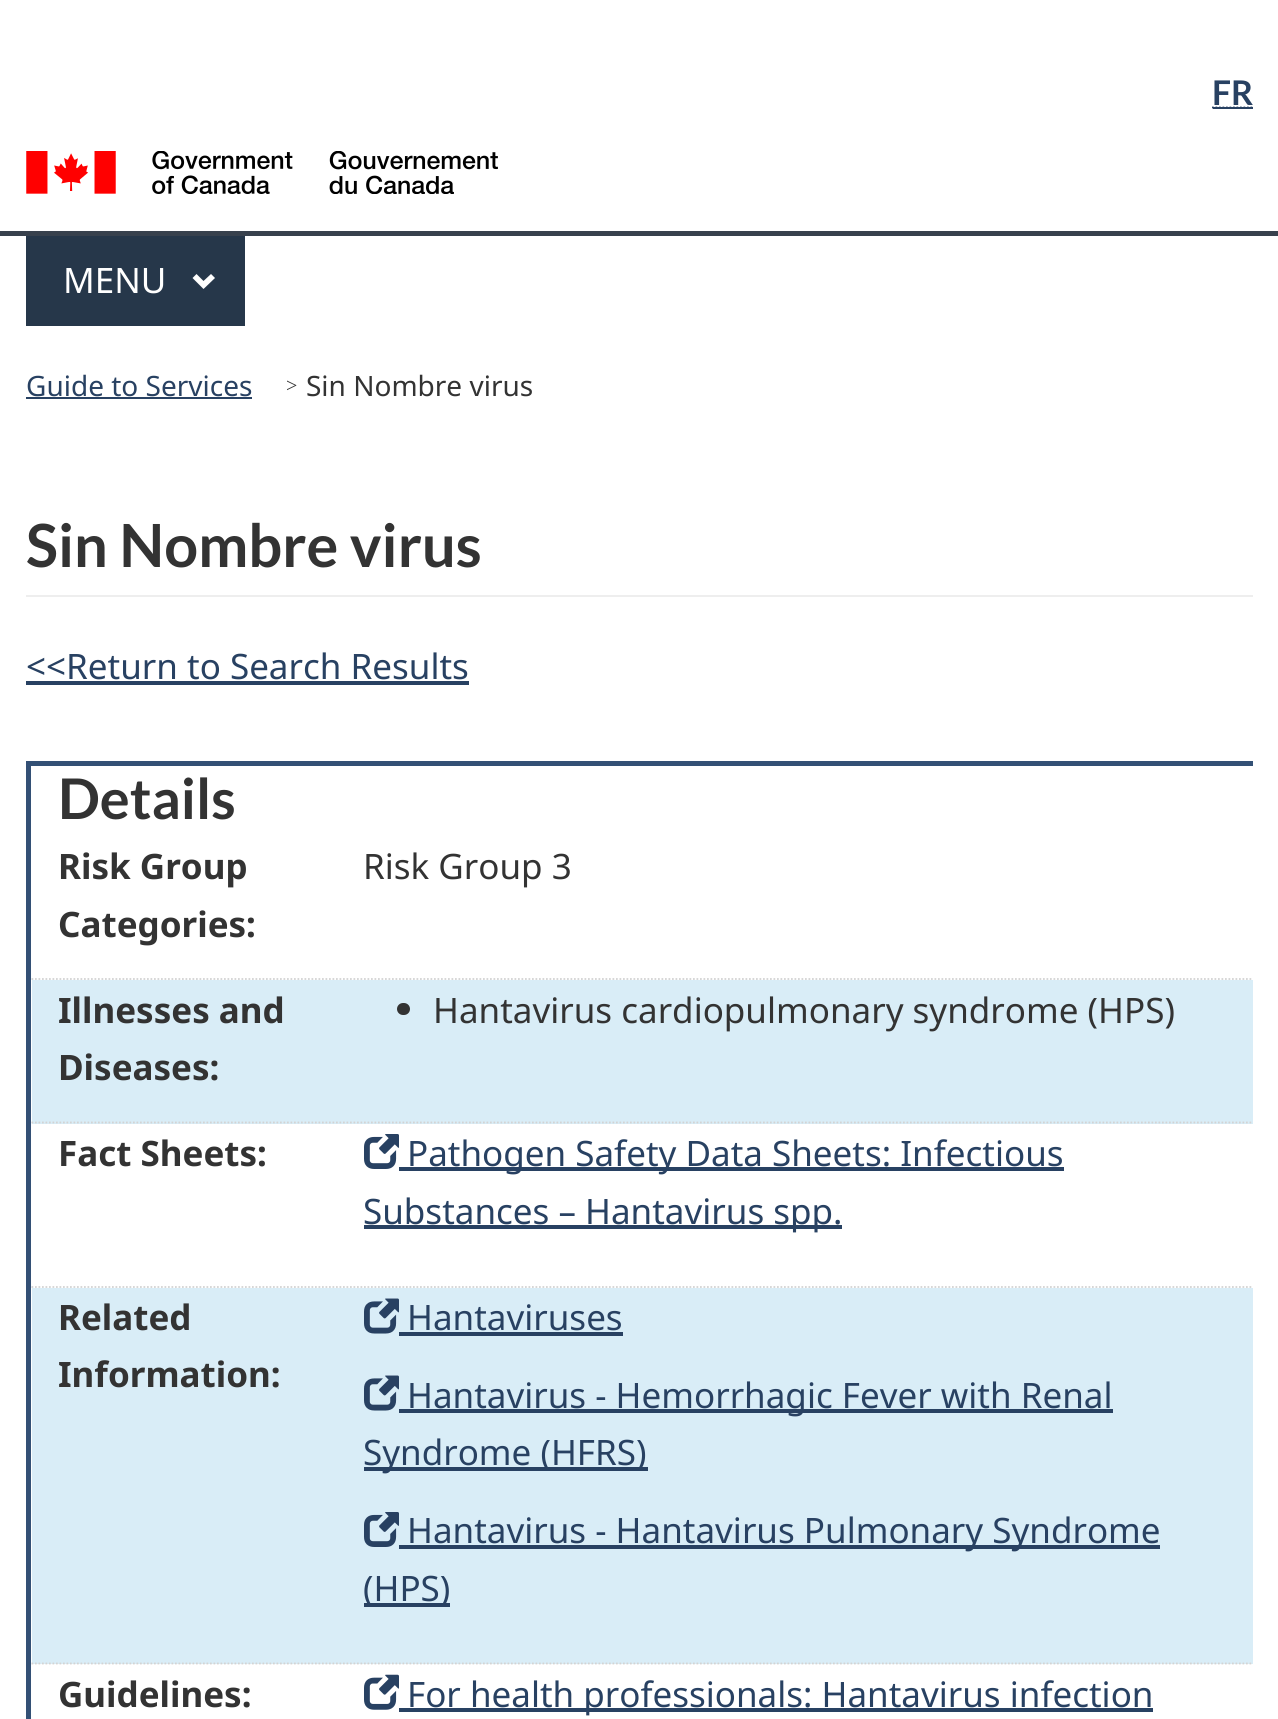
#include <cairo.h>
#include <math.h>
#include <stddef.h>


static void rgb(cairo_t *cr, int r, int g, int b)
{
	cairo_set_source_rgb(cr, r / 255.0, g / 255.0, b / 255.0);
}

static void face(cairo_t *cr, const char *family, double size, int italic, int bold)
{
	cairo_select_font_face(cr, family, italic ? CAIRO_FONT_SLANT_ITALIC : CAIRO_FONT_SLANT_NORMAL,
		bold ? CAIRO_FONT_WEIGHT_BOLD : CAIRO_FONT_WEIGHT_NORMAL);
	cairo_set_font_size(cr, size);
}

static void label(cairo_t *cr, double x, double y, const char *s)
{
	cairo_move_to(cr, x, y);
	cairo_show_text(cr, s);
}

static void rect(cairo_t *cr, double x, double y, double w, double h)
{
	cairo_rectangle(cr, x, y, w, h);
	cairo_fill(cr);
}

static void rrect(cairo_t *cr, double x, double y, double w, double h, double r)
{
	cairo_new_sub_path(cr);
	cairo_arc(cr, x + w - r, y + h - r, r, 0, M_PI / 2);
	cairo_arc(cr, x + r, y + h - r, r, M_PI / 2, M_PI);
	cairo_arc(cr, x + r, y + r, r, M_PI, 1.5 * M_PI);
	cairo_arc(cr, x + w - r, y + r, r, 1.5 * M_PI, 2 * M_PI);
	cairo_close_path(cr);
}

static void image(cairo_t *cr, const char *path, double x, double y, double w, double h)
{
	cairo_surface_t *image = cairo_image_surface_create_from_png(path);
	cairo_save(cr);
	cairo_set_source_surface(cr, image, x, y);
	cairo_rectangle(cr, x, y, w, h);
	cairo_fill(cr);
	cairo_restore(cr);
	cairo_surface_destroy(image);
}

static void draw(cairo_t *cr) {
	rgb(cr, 255, 255, 255);
	cairo_paint(cr);
	face(cr, "Lato", 34, 0, 1);
	rgb(cr, 40, 65, 98);
	label(cr, 1212, 105, "FR");
	cairo_new_path(cr);
	cairo_move_to(cr, 1212, 107.5);
	cairo_line_to(cr, 1253, 107.5);
	cairo_set_line_width(cr, 1.8);
	cairo_set_dash(cr, (double[]){1.75, 1.75}, 2, 0);
	cairo_stroke(cr);
	rect(cr, 1213, 107, 40, 2);
	image(cr, "image0.png", 26, 151, 472, 43);
	rgb(cr, 56, 65, 77);
	rect(cr, 0, 231, 1278, 5);
	rgb(cr, 38, 55, 74);
	rect(cr, 26, 236, 219, 90);
	face(cr, "Noto Sans", 35, 0, 0);
	rgb(cr, 255, 255, 255);
	label(cr, 63, 293, "MENU");
	cairo_new_path(cr);
	cairo_move_to(cr, 215, 278);
	cairo_line_to(cr, 203.5, 289);
	cairo_line_to(cr, 192.5, 278);
	cairo_line_to(cr, 196.5, 274);
	cairo_line_to(cr, 203.5, 281);
	cairo_line_to(cr, 211, 274);
	cairo_close_path(cr);
	cairo_fill(cr);
	face(cr, "Noto Sans", 28, 0, 0);
	rgb(cr, 40, 65, 98);
	label(cr, 26, 396, "Guide to Services");
	rect(cr, 26, 397, 226, 2);
	face(cr, "Liberation Serif", 20, 0, 0);
	rgb(cr, 51, 51, 51);
	label(cr, 286, 392, ">");
	face(cr, "Noto Sans", 28, 0, 0);
	label(cr, 306, 396, "Sin Nombre virus");
	rgb(cr, 238, 238, 238);
	rect(cr, 26, 595, 1227, 2);
	face(cr, "Lato", 59.5, 0, 1);
	rgb(cr, 51, 51, 51);
	label(cr, 26, 567, "Sin Nombre virus");
	face(cr, "Noto Sans", 35, 0, 0);
	rgb(cr, 40, 65, 98);
	label(cr, 26, 679, "<<Return to Search Results");
	rect(cr, 26, 681, 443, 4);
	rgb(cr, 51, 80, 117);
	rect(cr, 26, 761, 1227, 5);
	rect(cr, 26, 761, 5, 958);
	face(cr, "Lato", 56, 0, 1);
	rgb(cr, 51, 51, 51);
	label(cr, 58, 819, "Details");
	cairo_new_path(cr);
	cairo_move_to(cr, 31.5, 979);
	cairo_line_to(cr, 1253, 979);
	rgb(cr, 211, 211, 211);
	cairo_stroke(cr);
	face(cr, "Noto Sans", 35, 0, 1);
	rgb(cr, 51, 51, 51);
	label(cr, 58, 879, "Risk Group");
	label(cr, 58, 937, "Categories:");
	face(cr, "Noto Sans", 35, 0, 0);
	label(cr, 363, 879, "Risk Group 3");
	rgb(cr, 217, 237, 247);
	rect(cr, 32, 980, 1221, 144);
	cairo_new_path(cr);
	cairo_move_to(cr, 31.5, 1122.5);
	cairo_line_to(cr, 1253, 1122.5);
	rgb(cr, 211, 211, 211);
	cairo_stroke(cr);
	face(cr, "Noto Sans", 35, 0, 1);
	rgb(cr, 51, 51, 51);
	label(cr, 58, 1023, "Illnesses and");
	label(cr, 58, 1080, "Diseases:");
	rrect(cr, 397, 1003, 13, 12, 6);
	cairo_fill(cr);
	face(cr, "Noto Sans", 35, 0, 0);
	label(cr, 433, 1023, "Hantavirus cardiopulmonary syndrome (HPS)");
	cairo_new_path(cr);
	cairo_move_to(cr, 31.5, 1287);
	cairo_line_to(cr, 1253, 1287);
	rgb(cr, 211, 211, 211);
	cairo_stroke(cr);
	face(cr, "Noto Sans", 35, 0, 1);
	rgb(cr, 51, 51, 51);
	label(cr, 58, 1166, "Fact Sheets:");
	image(cr, "image1.png", 364, 1134, 35, 35);
	rgb(cr, 40, 65, 98);
	rect(cr, 399, 1167, 665, 4);
	face(cr, "Noto Sans", 35, 0, 0);
	label(cr, 407, 1166, "Pathogen Safety Data Sheets: Infectious");
	rect(cr, 364, 1225, 478, 4);
	label(cr, 363, 1224, "Substances – Hantavirus spp.");
	rgb(cr, 217, 237, 247);
	rect(cr, 32, 1288, 1221, 376);
	cairo_new_path(cr);
	cairo_move_to(cr, 31.5, 1663.5);
	cairo_line_to(cr, 1253, 1663.5);
	rgb(cr, 211, 211, 211);
	cairo_stroke(cr);
	face(cr, "Noto Sans", 35, 0, 1);
	rgb(cr, 51, 51, 51);
	label(cr, 58, 1330, "Related");
	label(cr, 58, 1387, "Information:");
	image(cr, "image2.png", 364, 1298, 35, 36);
	face(cr, "Noto Sans", 35, 0, 0);
	rgb(cr, 40, 65, 98);
	label(cr, 407, 1330, "Hantaviruses");
	rect(cr, 399, 1332, 224, 4);
	image(cr, "image2.png", 364, 1375, 35, 36);
	rect(cr, 399, 1409, 714, 4);
	label(cr, 407, 1408, "Hantavirus - Hemorrhagic Fever with Renal");
	rect(cr, 364, 1467, 284, 4);
	label(cr, 363, 1465, "Syndrome (HFRS)");
	image(cr, "image3.png", 364, 1512, 35, 35);
	rect(cr, 399, 1545, 761, 4);
	label(cr, 407, 1543, "Hantavirus - Hantavirus Pulmonary Syndrome");
	rect(cr, 364, 1603, 86, 4);
	label(cr, 363, 1601, "(HPS)");
	face(cr, "Noto Sans", 35, 0, 1);
	rgb(cr, 51, 51, 51);
	label(cr, 58, 1707, "Guidelines:");
	image(cr, "image4.png", 364, 1674, 35, 36);
	rgb(cr, 40, 65, 98);
	rect(cr, 399, 1708, 754, 4);
	face(cr, "Noto Sans", 35, 0, 0);
	label(cr, 407, 1707, "For health professionals: Hantavirus infection");
}

int main(void) {
	cairo_surface_t *surface = cairo_image_surface_create(CAIRO_FORMAT_RGB24, 1278, 1719);
	cairo_t *cr = cairo_create(surface);
	cairo_font_options_t *options = cairo_font_options_create();
	cairo_font_options_set_hint_metrics(options, CAIRO_HINT_METRICS_OFF);
	cairo_font_options_set_hint_style(options, CAIRO_HINT_STYLE_NONE);
	cairo_set_font_options(cr, options);
	cairo_set_miter_limit(cr, 4);
	draw(cr);
	cairo_surface_write_to_png(surface, "render.png");
	cairo_font_options_destroy(options);
	cairo_destroy(cr);
	cairo_surface_destroy(surface);
	return 0;
}
